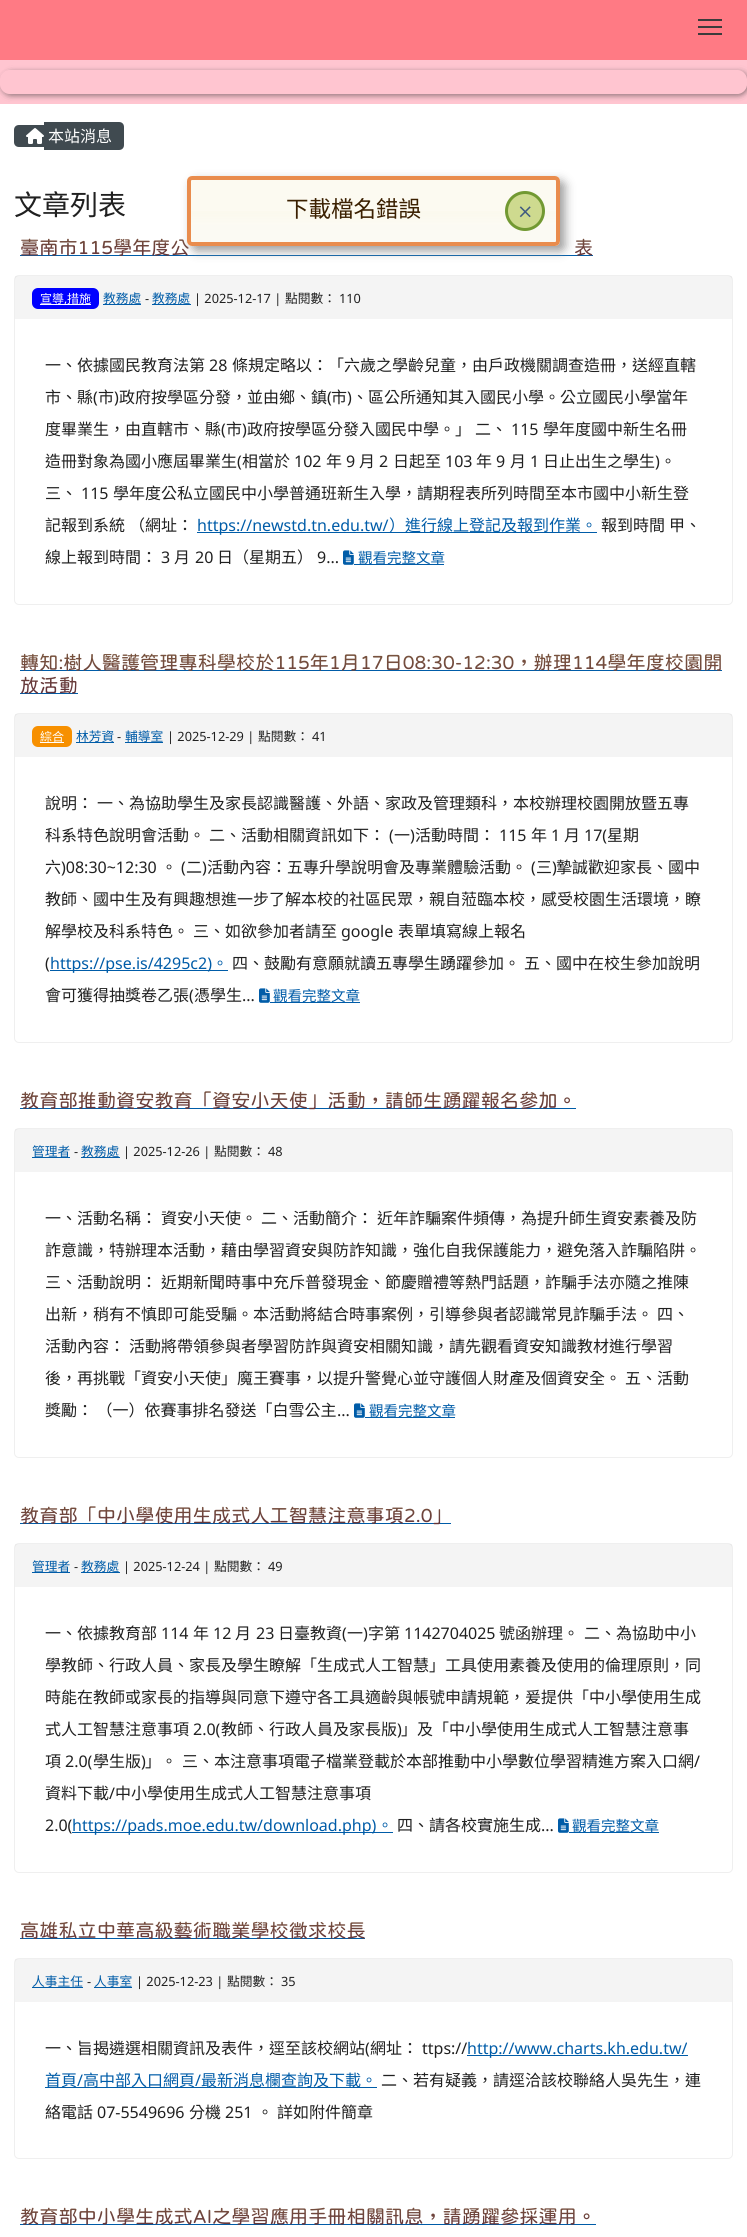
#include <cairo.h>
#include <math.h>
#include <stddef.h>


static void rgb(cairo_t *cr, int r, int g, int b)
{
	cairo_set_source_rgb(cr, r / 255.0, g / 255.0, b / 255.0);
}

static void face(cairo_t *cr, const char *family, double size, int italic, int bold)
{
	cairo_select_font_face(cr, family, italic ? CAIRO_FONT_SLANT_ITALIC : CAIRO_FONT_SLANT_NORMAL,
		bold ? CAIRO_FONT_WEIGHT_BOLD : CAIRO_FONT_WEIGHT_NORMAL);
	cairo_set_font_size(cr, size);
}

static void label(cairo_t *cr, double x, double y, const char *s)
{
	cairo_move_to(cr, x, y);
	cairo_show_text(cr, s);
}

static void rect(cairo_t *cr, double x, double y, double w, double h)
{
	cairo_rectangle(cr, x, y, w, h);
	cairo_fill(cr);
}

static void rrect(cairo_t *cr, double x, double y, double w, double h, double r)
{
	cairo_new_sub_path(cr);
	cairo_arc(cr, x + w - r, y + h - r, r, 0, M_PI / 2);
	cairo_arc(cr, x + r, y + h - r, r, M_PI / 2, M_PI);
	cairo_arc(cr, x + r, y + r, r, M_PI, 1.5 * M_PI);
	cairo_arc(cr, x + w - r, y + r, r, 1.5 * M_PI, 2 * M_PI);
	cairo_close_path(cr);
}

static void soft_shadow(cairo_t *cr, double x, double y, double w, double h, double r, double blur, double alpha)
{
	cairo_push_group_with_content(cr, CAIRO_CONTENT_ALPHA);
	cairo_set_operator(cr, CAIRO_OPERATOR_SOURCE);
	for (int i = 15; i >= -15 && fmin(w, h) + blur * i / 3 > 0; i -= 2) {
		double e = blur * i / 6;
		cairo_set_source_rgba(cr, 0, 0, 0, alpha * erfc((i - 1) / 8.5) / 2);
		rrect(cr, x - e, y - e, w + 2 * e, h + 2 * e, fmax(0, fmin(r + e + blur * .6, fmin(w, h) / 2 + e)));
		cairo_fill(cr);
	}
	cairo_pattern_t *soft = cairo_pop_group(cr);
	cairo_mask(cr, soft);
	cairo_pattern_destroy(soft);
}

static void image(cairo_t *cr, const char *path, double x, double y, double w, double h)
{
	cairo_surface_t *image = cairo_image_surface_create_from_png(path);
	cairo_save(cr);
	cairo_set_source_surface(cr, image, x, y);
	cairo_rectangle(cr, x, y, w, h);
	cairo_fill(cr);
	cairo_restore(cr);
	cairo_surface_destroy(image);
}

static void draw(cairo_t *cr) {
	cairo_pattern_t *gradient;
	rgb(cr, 255, 197, 208);
	cairo_paint(cr);
	rgb(cr, 255, 122, 132);
	rect(cr, 0, 0, 747, 60);
	rgb(cr, 59, 59, 59);
	rect(cr, 698, 26, 24, 2);
	rect(cr, 698, 19, 24, 2);
	rect(cr, 698, 33, 24, 2);
	cairo_save(cr);
	cairo_set_fill_rule(cr, CAIRO_FILL_RULE_EVEN_ODD);
	cairo_new_path(cr);
	cairo_move_to(cr, 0, 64);
	cairo_line_to(cr, 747, 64);
	cairo_line_to(cr, 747, 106);
	cairo_line_to(cr, 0, 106);
	cairo_close_path(cr);
	cairo_move_to(cr, 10, 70);
	cairo_line_to(cr, 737, 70);
	cairo_curve_to(cr, 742.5, 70, 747, 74.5, 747, 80);
	cairo_line_to(cr, 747, 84);
	cairo_curve_to(cr, 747, 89.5, 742.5, 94, 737, 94);
	cairo_line_to(cr, 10, 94);
	cairo_curve_to(cr, 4.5, 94, 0, 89.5, 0, 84);
	cairo_line_to(cr, 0, 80);
	cairo_curve_to(cr, 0, 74.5, 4.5, 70, 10, 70);
	cairo_close_path(cr);
	cairo_clip(cr);
	rgb(cr, 50, 50, 50);
	soft_shadow(cr, 0, 73, 747, 24, 10, 2.5, 0.2);
	cairo_restore(cr);
	cairo_save(cr);
	cairo_set_fill_rule(cr, CAIRO_FILL_RULE_EVEN_ODD);
	cairo_new_path(cr);
	cairo_move_to(cr, 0, 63);
	cairo_line_to(cr, 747, 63);
	cairo_line_to(cr, 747, 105);
	cairo_line_to(cr, 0, 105);
	cairo_close_path(cr);
	cairo_move_to(cr, 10, 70);
	cairo_line_to(cr, 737, 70);
	cairo_curve_to(cr, 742.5, 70, 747, 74.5, 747, 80);
	cairo_line_to(cr, 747, 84);
	cairo_curve_to(cr, 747, 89.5, 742.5, 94, 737, 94);
	cairo_line_to(cr, 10, 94);
	cairo_curve_to(cr, 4.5, 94, 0, 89.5, 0, 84);
	cairo_line_to(cr, 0, 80);
	cairo_curve_to(cr, 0, 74.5, 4.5, 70, 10, 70);
	cairo_close_path(cr);
	cairo_clip(cr);
	rgb(cr, 50, 50, 50);
	soft_shadow(cr, 2, 72, 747, 24, 10, 2.5, 0.2);
	cairo_restore(cr);
	cairo_save(cr);
	cairo_set_fill_rule(cr, CAIRO_FILL_RULE_EVEN_ODD);
	cairo_new_path(cr);
	cairo_move_to(cr, 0, 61);
	cairo_line_to(cr, 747, 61);
	cairo_line_to(cr, 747, 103);
	cairo_line_to(cr, 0, 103);
	cairo_close_path(cr);
	cairo_move_to(cr, 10, 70);
	cairo_line_to(cr, 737, 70);
	cairo_curve_to(cr, 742.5, 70, 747, 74.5, 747, 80);
	cairo_line_to(cr, 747, 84);
	cairo_curve_to(cr, 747, 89.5, 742.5, 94, 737, 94);
	cairo_line_to(cr, 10, 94);
	cairo_curve_to(cr, 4.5, 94, 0, 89.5, 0, 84);
	cairo_line_to(cr, 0, 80);
	cairo_curve_to(cr, 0, 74.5, 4.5, 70, 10, 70);
	cairo_close_path(cr);
	cairo_clip(cr);
	rgb(cr, 50, 50, 50);
	soft_shadow(cr, 3, 70, 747, 24, 10, 2.5, 0.2);
	cairo_restore(cr);
	rgb(cr, 255, 255, 255);
	rect(cr, 0, 104, 747, 2133);
	rgb(cr, 64, 74, 80);
	cairo_new_path(cr);
	cairo_move_to(cr, 19, 125);
	cairo_line_to(cr, 44, 125);
	cairo_line_to(cr, 44, 147);
	cairo_line_to(cr, 19, 147);
	cairo_curve_to(cr, 16, 147, 14, 145, 14, 142);
	cairo_line_to(cr, 14, 130);
	cairo_curve_to(cr, 14, 127, 16, 125, 19, 125);
	cairo_close_path(cr);
	cairo_fill(cr);
	cairo_new_path(cr);
	cairo_move_to(cr, 44, 122);
	cairo_line_to(cr, 119, 122);
	cairo_curve_to(cr, 122, 122, 124, 124, 124, 127);
	cairo_line_to(cr, 124, 145);
	cairo_curve_to(cr, 124, 148, 122, 150, 119, 150);
	cairo_line_to(cr, 44, 150);
	cairo_close_path(cr);
	cairo_fill(cr);
	image(cr, "image0.png", 26, 128, 18, 16);
	face(cr, "Noto Sans CJK TC", 16, 0, 0);
	rgb(cr, 255, 255, 255);
	label(cr, 48, 142, "本站消息");
	face(cr, "Noto Sans CJK TC", 28, 0, 0);
	rgb(cr, 32, 32, 32);
	label(cr, 14, 215, "文章列表");
	rgb(cr, 0, 92, 168);
	rect(cr, 20, 255, 573, 1);
	face(cr, "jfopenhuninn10", 19.2, 0, 0);
	gradient = cairo_pattern_create_linear(374, 229, 374, 265);
	cairo_pattern_add_color_stop_rgba(gradient, 0, 0.494, 0.361, 0.251, 1);
	cairo_pattern_add_color_stop_rgba(gradient, 1, 0.361, 0.161, 0.22, 1);
	cairo_set_source(cr, gradient);
	cairo_pattern_destroy(gradient);
	label(cr, 20, 254, "臺南市115學年度公");
	label(cr, 574, 254, "表");
	rrect(cr, 14.5, 275.5, 718, 329, 4.5);
	rgb(cr, 239, 239, 239);
	cairo_set_line_width(cr, 1);
	cairo_stroke(cr);
	cairo_set_source_rgba(cr, 0.784, 0.784, 0.784, 0.2);
	rect(cr, 15, 276, 717, 43);
	rgb(cr, 0, 0, 255);
	rrect(cr, 32, 288, 67, 21, 6);
	cairo_fill(cr);
	face(cr, "Noto Sans CJK TC", 12, 0, 0);
	rgb(cr, 255, 255, 255);
	label(cr, 40, 303, "宣導");
	rect(cr, 40, 304, 51, 1);
	face(cr, "Noto Sans", 12, 0, 0);
	label(cr, 64, 303, ",");
	face(cr, "Noto Sans CJK TC", 12, 0, 0);
	label(cr, 67, 303, "措施");
	rgb(cr, 0, 92, 168);
	rect(cr, 103, 304, 38, 1);
	face(cr, "Noto Sans CJK TC", 12.75, 0, 0);
	label(cr, 103, 303, "教務處");
	face(cr, "Noto Sans", 12.75, 0, 0);
	rgb(cr, 32, 32, 32);
	label(cr, 145, 303, "-");
	rgb(cr, 0, 92, 168);
	rect(cr, 152, 304, 39, 1);
	face(cr, "Noto Sans CJK TC", 12.75, 0, 0);
	label(cr, 152, 303, "教務處");
	face(cr, "Noto Sans", 12.75, 0, 0);
	rgb(cr, 32, 32, 32);
	label(cr, 194, 303, "| 2025-12-17 |");
	face(cr, "Noto Sans CJK TC", 12.75, 0, 0);
	label(cr, 285, 303, "點閱數：");
	face(cr, "Noto Sans", 12.75, 0, 0);
	label(cr, 339, 303, "110");
	face(cr, "Noto Sans CJK TC", 16, 0, 0);
	label(cr, 45, 371, "一、依據國民教育法第");
	face(cr, "Noto Sans", 16, 0, 0);
	label(cr, 209, 371, "28");
	face(cr, "Noto Sans CJK TC", 16, 0, 0);
	label(cr, 232, 371, "條規定略以：「六歲之學齡兒童，由戶政機關調查造冊，送經直轄");
	label(cr, 45, 403, "市、縣");
	face(cr, "Noto Sans", 16, 0, 0);
	label(cr, 93, 403, "(");
	face(cr, "Noto Sans CJK TC", 16, 0, 0);
	label(cr, 98, 403, "市");
	face(cr, "Noto Sans", 16, 0, 0);
	label(cr, 114, 403, ")");
	face(cr, "Noto Sans CJK TC", 16, 0, 0);
	label(cr, 119, 403, "政府按學區分發，並由鄉、鎮");
	face(cr, "Noto Sans", 16, 0, 0);
	label(cr, 327, 403, "(");
	face(cr, "Noto Sans CJK TC", 16, 0, 0);
	label(cr, 331, 403, "市");
	face(cr, "Noto Sans", 16, 0, 0);
	label(cr, 347, 403, ")");
	face(cr, "Noto Sans CJK TC", 16, 0, 0);
	label(cr, 352, 403, "、區公所通知其入國民小學。公立國民小學當年");
	label(cr, 45, 435, "度畢業生，由直轄市、縣");
	face(cr, "Noto Sans", 16, 0, 0);
	label(cr, 221, 435, "(");
	face(cr, "Noto Sans CJK TC", 16, 0, 0);
	label(cr, 226, 435, "市");
	face(cr, "Noto Sans", 16, 0, 0);
	label(cr, 242, 435, ")");
	face(cr, "Noto Sans CJK TC", 16, 0, 0);
	label(cr, 247, 435, "政府按學區分發入國民中學。」");
	label(cr, 475, 435, "二、");
	face(cr, "Noto Sans", 16, 0, 0);
	label(cr, 511, 435, "115");
	face(cr, "Noto Sans CJK TC", 16, 0, 0);
	label(cr, 543, 435, "學年度國中新生名冊");
	label(cr, 45, 467, "造冊對象為國小應屆畢業生");
	face(cr, "Noto Sans", 16, 0, 0);
	label(cr, 237, 467, "(");
	face(cr, "Noto Sans CJK TC", 16, 0, 0);
	label(cr, 242, 467, "相當於");
	face(cr, "Noto Sans", 16, 0, 0);
	label(cr, 294, 467, "102");
	face(cr, "Noto Sans CJK TC", 16, 0, 0);
	label(cr, 326, 467, "年");
	face(cr, "Noto Sans", 16, 0, 0);
	label(cr, 346, 467, "9");
	face(cr, "Noto Sans CJK TC", 16, 0, 0);
	label(cr, 359, 467, "月");
	face(cr, "Noto Sans", 16, 0, 0);
	label(cr, 379, 467, "2");
	face(cr, "Noto Sans CJK TC", 16, 0, 0);
	label(cr, 393, 467, "日起至");
	face(cr, "Noto Sans", 16, 0, 0);
	label(cr, 445, 467, "103");
	face(cr, "Noto Sans CJK TC", 16, 0, 0);
	label(cr, 476, 467, "年");
	face(cr, "Noto Sans", 16, 0, 0);
	label(cr, 496, 467, "9");
	face(cr, "Noto Sans CJK TC", 16, 0, 0);
	label(cr, 510, 467, "月");
	face(cr, "Noto Sans", 16, 0, 0);
	label(cr, 530, 467, "1");
	face(cr, "Noto Sans CJK TC", 16, 0, 0);
	label(cr, 543, 467, "日止出生之學生");
	face(cr, "Noto Sans", 16, 0, 0);
	label(cr, 655, 467, ")");
	face(cr, "Noto Sans CJK TC", 16, 0, 0);
	label(cr, 660, 467, "。");
	label(cr, 45, 499, "三、");
	face(cr, "Noto Sans", 16, 0, 0);
	label(cr, 81, 499, "115");
	face(cr, "Noto Sans CJK TC", 16, 0, 0);
	label(cr, 113, 499, "學年度公私立國民中小學普通班新生入學，請期程表所列時間至本市國中小新生登");
	label(cr, 45, 531, "記報到系統");
	label(cr, 129, 531, "（網址：");
	rgb(cr, 0, 92, 168);
	rect(cr, 197, 532, 400, 1);
	face(cr, "Noto Sans", 16, 0, 0);
	label(cr, 197, 531, "https://newstd.tn.edu.tw/");
	face(cr, "Noto Sans CJK TC", 16, 0, 0);
	label(cr, 389, 531, "）進行線上登記及報到作業。");
	rgb(cr, 32, 32, 32);
	label(cr, 601, 531, "報到時間");
	label(cr, 669, 531, "甲、");
	label(cr, 45, 563, "線上報到時間：");
	face(cr, "Noto Sans", 16, 0, 0);
	label(cr, 161, 563, "3");
	face(cr, "Noto Sans CJK TC", 16, 0, 0);
	label(cr, 174, 563, "月");
	face(cr, "Noto Sans", 16, 0, 0);
	label(cr, 195, 563, "20");
	face(cr, "Noto Sans CJK TC", 16, 0, 0);
	label(cr, 217, 563, "日（星期五）");
	face(cr, "Noto Sans", 16, 0, 0);
	label(cr, 317, 563, "9...");
	image(cr, "image1.png", 343, 550, 11, 15);
	rgb(cr, 0, 92, 168);
	rect(cr, 354, 564, 90, 1);
	face(cr, "Noto Sans CJK TC", 14.5, 0, 0);
	label(cr, 358, 563, "觀看完整文章");
	rect(cr, 20, 670, 702, 1);
	face(cr, "jfopenhuninn10", 19.2, 0, 0);
	gradient = cairo_pattern_create_linear(374, 645, 374, 703);
	cairo_pattern_add_color_stop_rgba(gradient, 0, 0.494, 0.361, 0.251, 1);
	cairo_pattern_add_color_stop_rgba(gradient, 1, 0.361, 0.161, 0.22, 1);
	cairo_set_source(cr, gradient);
	cairo_pattern_destroy(gradient);
	label(cr, 20, 669, "轉知:樹人醫護管理專科學校於115年1月17日08:30-12:30，辦理114學年度校園開");
	rgb(cr, 0, 92, 168);
	rect(cr, 20, 693, 58, 1);
	gradient = cairo_pattern_create_linear(374, 645, 374, 703);
	cairo_pattern_add_color_stop_rgba(gradient, 0, 0.494, 0.361, 0.251, 1);
	cairo_pattern_add_color_stop_rgba(gradient, 1, 0.361, 0.161, 0.22, 1);
	cairo_set_source(cr, gradient);
	cairo_pattern_destroy(gradient);
	label(cr, 20, 692, "放活動");
	rrect(cr, 14.5, 713.5, 718, 329, 4.5);
	rgb(cr, 239, 239, 239);
	cairo_stroke(cr);
	cairo_set_source_rgba(cr, 0.784, 0.784, 0.784, 0.2);
	rect(cr, 15, 714, 717, 43);
	rgb(cr, 247, 144, 0);
	rrect(cr, 32, 726, 40, 21, 6);
	cairo_fill(cr);
	face(cr, "Noto Sans CJK TC", 12, 0, 0);
	rgb(cr, 255, 255, 255);
	label(cr, 40, 741, "綜合");
	rect(cr, 40, 742, 24, 1);
	face(cr, "Noto Sans CJK TC", 12.75, 0, 0);
	rgb(cr, 0, 92, 168);
	label(cr, 76, 741, "林芳資");
	rect(cr, 76, 742, 38, 1);
	face(cr, "Noto Sans", 12.75, 0, 0);
	rgb(cr, 32, 32, 32);
	label(cr, 117, 741, "-");
	rgb(cr, 0, 92, 168);
	rect(cr, 125, 742, 38, 1);
	face(cr, "Noto Sans CJK TC", 12.75, 0, 0);
	label(cr, 125, 741, "輔導室");
	face(cr, "Noto Sans", 12.75, 0, 0);
	rgb(cr, 32, 32, 32);
	label(cr, 167, 741, "| 2025-12-29 |");
	face(cr, "Noto Sans CJK TC", 12.75, 0, 0);
	label(cr, 258, 741, "點閱數：");
	face(cr, "Noto Sans", 12.75, 0, 0);
	label(cr, 312, 741, "41");
	face(cr, "Noto Sans CJK TC", 16, 0, 0);
	label(cr, 45, 809, "說明：");
	label(cr, 97, 809, "一、為協助學生及家長認識醫護、外語、家政及管理類科，本校辦理校園開放暨五專");
	label(cr, 45, 841, "科系特色說明會活動。");
	label(cr, 209, 841, "二、活動相關資訊如下：");
	face(cr, "Noto Sans", 16, 0, 0);
	label(cr, 389, 841, "(");
	face(cr, "Noto Sans CJK TC", 16, 0, 0);
	label(cr, 394, 841, "一");
	face(cr, "Noto Sans", 16, 0, 0);
	label(cr, 410, 841, ")");
	face(cr, "Noto Sans CJK TC", 16, 0, 0);
	label(cr, 415, 841, "活動時間：");
	face(cr, "Noto Sans", 16, 0, 0);
	label(cr, 499, 841, "115");
	face(cr, "Noto Sans CJK TC", 16, 0, 0);
	label(cr, 531, 841, "年");
	face(cr, "Noto Sans", 16, 0, 0);
	label(cr, 551, 841, "1");
	face(cr, "Noto Sans CJK TC", 16, 0, 0);
	label(cr, 564, 841, "月");
	face(cr, "Noto Sans", 16, 0, 0);
	label(cr, 584, 841, "17(");
	face(cr, "Noto Sans CJK TC", 16, 0, 0);
	label(cr, 607, 841, "星期");
	label(cr, 45, 873, "六");
	face(cr, "Noto Sans", 16, 0, 0);
	label(cr, 61, 873, ")08:30~12:30");
	face(cr, "Noto Sans CJK TC", 16, 0, 0);
	label(cr, 161, 873, "。");
	face(cr, "Noto Sans", 16, 0, 0);
	label(cr, 181, 873, "(");
	face(cr, "Noto Sans CJK TC", 16, 0, 0);
	label(cr, 186, 873, "二");
	face(cr, "Noto Sans", 16, 0, 0);
	label(cr, 202, 873, ")");
	face(cr, "Noto Sans CJK TC", 16, 0, 0);
	label(cr, 207, 873, "活動內容：五專升學說明會及專業體驗活動。");
	face(cr, "Noto Sans", 16, 0, 0);
	label(cr, 531, 873, "(");
	face(cr, "Noto Sans CJK TC", 16, 0, 0);
	label(cr, 536, 873, "三");
	face(cr, "Noto Sans", 16, 0, 0);
	label(cr, 552, 873, ")");
	face(cr, "Noto Sans CJK TC", 16, 0, 0);
	label(cr, 556, 873, "摯誠歡迎家長、國中");
	label(cr, 45, 905, "教師、國中生及有興趣想進一步了解本校的社區民眾，親自蒞臨本校，感受校園生活環境，瞭");
	label(cr, 45, 937, "解學校及科系特色。");
	label(cr, 193, 937, "三、如欲參加者請至");
	face(cr, "Noto Sans", 16, 0, 0);
	label(cr, 341, 937, "google");
	face(cr, "Noto Sans CJK TC", 16, 0, 0);
	label(cr, 398, 937, "表單填寫線上報名");
	face(cr, "Noto Sans", 16, 0, 0);
	label(cr, 45, 969, "(");
	rgb(cr, 0, 92, 168);
	rect(cr, 50, 970, 178, 1);
	label(cr, 50, 969, "https://pse.is/4295c2)");
	face(cr, "Noto Sans CJK TC", 16, 0, 0);
	label(cr, 212, 969, "。");
	rgb(cr, 32, 32, 32);
	label(cr, 232, 969, "四、鼓勵有意願就讀五專學生踴躍參加。");
	label(cr, 524, 969, "五、國中在校生參加說明");
	label(cr, 45, 1001, "會可獲得抽獎卷乙張");
	face(cr, "Noto Sans", 16, 0, 0);
	label(cr, 189, 1001, "(");
	face(cr, "Noto Sans CJK TC", 16, 0, 0);
	label(cr, 194, 1001, "憑學生");
	face(cr, "Noto Sans", 16, 0, 0);
	label(cr, 242, 1001, "...");
	image(cr, "image1.png", 259, 988, 11, 15);
	rgb(cr, 0, 92, 168);
	rect(cr, 270, 1002, 90, 1);
	face(cr, "Noto Sans CJK TC", 14.5, 0, 0);
	label(cr, 273, 1001, "觀看完整文章");
	rect(cr, 20, 1108, 556, 1);
	face(cr, "jfopenhuninn10", 19.2, 0, 0);
	gradient = cairo_pattern_create_linear(374, 1083, 374, 1118);
	cairo_pattern_add_color_stop_rgba(gradient, 0, 0.494, 0.361, 0.251, 1);
	cairo_pattern_add_color_stop_rgba(gradient, 1, 0.361, 0.161, 0.22, 1);
	cairo_set_source(cr, gradient);
	cairo_pattern_destroy(gradient);
	label(cr, 20, 1107, "教育部推動資安教育「資安小天使」活動，請師生踴躍報名參加。");
	rrect(cr, 14.5, 1128.5, 718, 329, 4.5);
	rgb(cr, 239, 239, 239);
	cairo_stroke(cr);
	cairo_set_source_rgba(cr, 0.784, 0.784, 0.784, 0.2);
	rect(cr, 15, 1129, 717, 43);
	rgb(cr, 0, 92, 168);
	rect(cr, 32, 1157, 38, 1);
	face(cr, "Noto Sans CJK TC", 12.75, 0, 0);
	label(cr, 32, 1156, "管理者");
	face(cr, "Noto Sans", 12.75, 0, 0);
	rgb(cr, 32, 32, 32);
	label(cr, 74, 1156, "-");
	rgb(cr, 0, 92, 168);
	rect(cr, 81, 1157, 39, 1);
	face(cr, "Noto Sans CJK TC", 12.75, 0, 0);
	label(cr, 81, 1156, "教務處");
	face(cr, "Noto Sans", 12.75, 0, 0);
	rgb(cr, 32, 32, 32);
	label(cr, 123, 1156, "| 2025-12-26 |");
	face(cr, "Noto Sans CJK TC", 12.75, 0, 0);
	label(cr, 214, 1156, "點閱數：");
	face(cr, "Noto Sans", 12.75, 0, 0);
	label(cr, 268, 1156, "48");
	face(cr, "Noto Sans CJK TC", 16, 0, 0);
	label(cr, 45, 1224, "一、活動名稱：");
	label(cr, 161, 1224, "資安小天使。");
	label(cr, 261, 1224, "二、活動簡介：");
	label(cr, 377, 1224, "近年詐騙案件頻傳，為提升師生資安素養及防");
	label(cr, 45, 1256, "詐意識，特辦理本活動，藉由學習資安與防詐知識，強化自我保護能力，避免落入詐騙陷阱。");
	label(cr, 45, 1288, "三、活動說明：");
	label(cr, 161, 1288, "近期新聞時事中充斥普發現金、節慶贈禮等熱門話題，詐騙手法亦隨之推陳");
	label(cr, 45, 1320, "出新，稍有不慎即可能受騙。本活動將結合時事案例，引導參與者認識常見詐騙手法。");
	label(cr, 657, 1320, "四、");
	label(cr, 45, 1352, "活動內容：");
	label(cr, 129, 1352, "活動將帶領參與者學習防詐與資安相關知識，請先觀看資安知識教材進行學習");
	label(cr, 45, 1384, "後，再挑戰「資安小天使」魔王賽事，以提升警覺心並守護個人財產及個資安全。");
	label(cr, 625, 1384, "五、活動");
	label(cr, 45, 1416, "獎勵： （一）依賽事排名發送「白雪公主");
	face(cr, "Noto Sans", 16, 0, 0);
	label(cr, 337, 1416, "...");
	image(cr, "image1.png", 354, 1403, 11, 15);
	rgb(cr, 0, 92, 168);
	rect(cr, 365, 1417, 90, 1);
	face(cr, "Noto Sans CJK TC", 14.5, 0, 0);
	label(cr, 369, 1416, "觀看完整文章");
	rect(cr, 20, 1523, 431, 1);
	face(cr, "jfopenhuninn10", 19.2, 0, 0);
	gradient = cairo_pattern_create_linear(374, 1498, 374, 1533);
	cairo_pattern_add_color_stop_rgba(gradient, 0, 0.494, 0.361, 0.251, 1);
	cairo_pattern_add_color_stop_rgba(gradient, 1, 0.361, 0.161, 0.22, 1);
	cairo_set_source(cr, gradient);
	cairo_pattern_destroy(gradient);
	label(cr, 20, 1522, "教育部「中小學使用生成式人工智慧注意事項2.0」");
	rrect(cr, 14.5, 1543.5, 718, 329, 4.5);
	rgb(cr, 239, 239, 239);
	cairo_stroke(cr);
	cairo_set_source_rgba(cr, 0.784, 0.784, 0.784, 0.2);
	rect(cr, 15, 1544, 717, 43);
	rgb(cr, 0, 92, 168);
	rect(cr, 32, 1572, 38, 1);
	face(cr, "Noto Sans CJK TC", 12.75, 0, 0);
	label(cr, 32, 1571, "管理者");
	face(cr, "Noto Sans", 12.75, 0, 0);
	rgb(cr, 32, 32, 32);
	label(cr, 74, 1571, "-");
	rgb(cr, 0, 92, 168);
	rect(cr, 81, 1572, 39, 1);
	face(cr, "Noto Sans CJK TC", 12.75, 0, 0);
	label(cr, 81, 1571, "教務處");
	face(cr, "Noto Sans", 12.75, 0, 0);
	rgb(cr, 32, 32, 32);
	label(cr, 123, 1571, "| 2025-12-24 |");
	face(cr, "Noto Sans CJK TC", 12.75, 0, 0);
	label(cr, 214, 1571, "點閱數：");
	face(cr, "Noto Sans", 12.75, 0, 0);
	label(cr, 268, 1571, "49");
	face(cr, "Noto Sans CJK TC", 16, 0, 0);
	label(cr, 45, 1639, "一、依據教育部");
	face(cr, "Noto Sans", 16, 0, 0);
	label(cr, 161, 1639, "114");
	face(cr, "Noto Sans CJK TC", 16, 0, 0);
	label(cr, 193, 1639, "年");
	face(cr, "Noto Sans", 16, 0, 0);
	label(cr, 213, 1639, "12");
	face(cr, "Noto Sans CJK TC", 16, 0, 0);
	label(cr, 235, 1639, "月");
	face(cr, "Noto Sans", 16, 0, 0);
	label(cr, 256, 1639, "23");
	face(cr, "Noto Sans CJK TC", 16, 0, 0);
	label(cr, 278, 1639, "日臺教資");
	face(cr, "Noto Sans", 16, 0, 0);
	label(cr, 342, 1639, "(");
	face(cr, "Noto Sans CJK TC", 16, 0, 0);
	label(cr, 347, 1639, "一");
	face(cr, "Noto Sans", 16, 0, 0);
	label(cr, 363, 1639, ")");
	face(cr, "Noto Sans CJK TC", 16, 0, 0);
	label(cr, 368, 1639, "字第");
	face(cr, "Noto Sans", 16, 0, 0);
	label(cr, 404, 1639, "1142704025");
	face(cr, "Noto Sans CJK TC", 16, 0, 0);
	label(cr, 499, 1639, "號函辦理。");
	label(cr, 584, 1639, "二、為協助中小");
	label(cr, 45, 1671, "學教師、行政人員、家長及學生瞭解「生成式人工智慧」工具使用素養及使用的倫理原則，同");
	label(cr, 45, 1703, "時能在教師或家長的指導與同意下遵守各工具適齡與帳號申請規範，爰提供「中小學使用生成");
	label(cr, 45, 1735, "式人工智慧注意事項");
	face(cr, "Noto Sans", 16, 0, 0);
	label(cr, 193, 1735, "2.0(");
	face(cr, "Noto Sans CJK TC", 16, 0, 0);
	label(cr, 221, 1735, "教師、行政人員及家長版");
	face(cr, "Noto Sans", 16, 0, 0);
	label(cr, 397, 1735, ")");
	face(cr, "Noto Sans CJK TC", 16, 0, 0);
	label(cr, 401, 1735, "」及「中小學使用生成式人工智慧注意事");
	label(cr, 45, 1767, "項");
	face(cr, "Noto Sans", 16, 0, 0);
	label(cr, 65, 1767, "2.0(");
	face(cr, "Noto Sans CJK TC", 16, 0, 0);
	label(cr, 93, 1767, "學生版");
	face(cr, "Noto Sans", 16, 0, 0);
	label(cr, 141, 1767, ")");
	face(cr, "Noto Sans CJK TC", 16, 0, 0);
	label(cr, 145, 1767, "」。");
	label(cr, 182, 1767, "三、本注意事項電子檔業登載於本部推動中小學數位學習精進方案入口網");
	face(cr, "Noto Sans", 16, 0, 0);
	label(cr, 694, 1767, "/");
	face(cr, "Noto Sans CJK TC", 16, 0, 0);
	label(cr, 45, 1799, "資料下載");
	face(cr, "Noto Sans", 16, 0, 0);
	label(cr, 109, 1799, "/");
	face(cr, "Noto Sans CJK TC", 16, 0, 0);
	label(cr, 115, 1799, "中小學使用生成式人工智慧注意事項");
	face(cr, "Noto Sans", 16, 0, 0);
	label(cr, 45, 1831, "2.0(");
	rgb(cr, 0, 92, 168);
	rect(cr, 72, 1832, 321, 1);
	label(cr, 72, 1831, "https://pads.moe.edu.tw/download.php)");
	face(cr, "Noto Sans CJK TC", 16, 0, 0);
	label(cr, 377, 1831, "。");
	rgb(cr, 32, 32, 32);
	label(cr, 397, 1831, "四、請各校實施生成");
	image(cr, "image1.png", 558, 1818, 11, 15);
	rgb(cr, 0, 92, 168);
	rect(cr, 569, 1832, 90, 1);
	face(cr, "Noto Sans CJK TC", 14.5, 0, 0);
	label(cr, 572, 1831, "觀看完整文章");
	face(cr, "Noto Sans", 16, 0, 0);
	rgb(cr, 32, 32, 32);
	label(cr, 541, 1831, "...");
	rgb(cr, 0, 92, 168);
	rect(cr, 20, 1938, 345, 1);
	face(cr, "jfopenhuninn10", 19.2, 0, 0);
	gradient = cairo_pattern_create_linear(374, 1913, 374, 1948);
	cairo_pattern_add_color_stop_rgba(gradient, 0, 0.494, 0.361, 0.251, 1);
	cairo_pattern_add_color_stop_rgba(gradient, 1, 0.361, 0.161, 0.22, 1);
	cairo_set_source(cr, gradient);
	cairo_pattern_destroy(gradient);
	label(cr, 20, 1937, "高雄私立中華高級藝術職業學校徵求校長");
	rrect(cr, 14.5, 1958.5, 718, 200, 4.5);
	rgb(cr, 239, 239, 239);
	cairo_stroke(cr);
	cairo_set_source_rgba(cr, 0.784, 0.784, 0.784, 0.2);
	rect(cr, 15, 1959, 717, 43);
	rgb(cr, 0, 92, 168);
	rect(cr, 32, 1987, 51, 1);
	face(cr, "Noto Sans CJK TC", 12.75, 0, 0);
	label(cr, 32, 1986, "人事主任");
	face(cr, "Noto Sans", 12.75, 0, 0);
	rgb(cr, 32, 32, 32);
	label(cr, 87, 1986, "-");
	rgb(cr, 0, 92, 168);
	rect(cr, 94, 1987, 38, 1);
	face(cr, "Noto Sans CJK TC", 12.75, 0, 0);
	label(cr, 94, 1986, "人事室");
	face(cr, "Noto Sans", 12.75, 0, 0);
	rgb(cr, 32, 32, 32);
	label(cr, 136, 1986, "| 2025-12-23 |");
	face(cr, "Noto Sans CJK TC", 12.75, 0, 0);
	label(cr, 227, 1986, "點閱數：");
	face(cr, "Noto Sans", 12.75, 0, 0);
	label(cr, 281, 1986, "35");
	face(cr, "Noto Sans CJK TC", 16, 0, 0);
	label(cr, 45, 2054, "一、旨揭遴選相關資訊及表件，逕至該校網站");
	face(cr, "Noto Sans", 16, 0, 0);
	label(cr, 365, 2054, "(");
	face(cr, "Noto Sans CJK TC", 16, 0, 0);
	label(cr, 370, 2054, "網址：");
	face(cr, "Noto Sans", 16, 0, 0);
	label(cr, 422, 2054, "ttps://");
	rgb(cr, 0, 92, 168);
	rect(cr, 467, 2055, 221, 1);
	label(cr, 467, 2054, "http://www.charts.kh.edu.tw/");
	rect(cr, 45, 2087, 332, 1);
	face(cr, "Noto Sans CJK TC", 16, 0, 0);
	label(cr, 45, 2086, "首頁");
	face(cr, "Noto Sans", 16, 0, 0);
	label(cr, 77, 2086, "/");
	face(cr, "Noto Sans CJK TC", 16, 0, 0);
	label(cr, 83, 2086, "高中部入口網頁");
	face(cr, "Noto Sans", 16, 0, 0);
	label(cr, 195, 2086, "/");
	face(cr, "Noto Sans CJK TC", 16, 0, 0);
	label(cr, 201, 2086, "最新消息欄查詢及下載。");
	rgb(cr, 32, 32, 32);
	label(cr, 381, 2086, "二、若有疑義，請逕洽該校聯絡人吳先生，連");
	label(cr, 45, 2118, "絡電話");
	face(cr, "Noto Sans", 16, 0, 0);
	label(cr, 97, 2118, "07-5549696");
	face(cr, "Noto Sans CJK TC", 16, 0, 0);
	label(cr, 189, 2118, "分機");
	face(cr, "Noto Sans", 16, 0, 0);
	label(cr, 225, 2118, "251");
	face(cr, "Noto Sans CJK TC", 16, 0, 0);
	label(cr, 257, 2118, "。");
	label(cr, 277, 2118, "詳如附件簡章");
	rgb(cr, 0, 92, 168);
	rect(cr, 20, 2224, 576, 1);
	face(cr, "jfopenhuninn10", 19.2, 0, 0);
	gradient = cairo_pattern_create_linear(374, 2199, 374, 2234);
	cairo_pattern_add_color_stop_rgba(gradient, 0, 0.494, 0.361, 0.251, 1);
	cairo_pattern_add_color_stop_rgba(gradient, 1, 0.361, 0.161, 0.22, 1);
	cairo_set_source(cr, gradient);
	cairo_pattern_destroy(gradient);
	label(cr, 20, 2223, "教育部中小學生成式AI之學習應用手冊相關訊息，請踴躍參採運用。");
	rgb(cr, 158, 158, 158);
	soft_shadow(cr, 192, 181, 373, 70, 5, 5, 1);
	image(cr, "image2.png", 187, 176, 373, 70);
	rrect(cr, 189, 178, 369, 66, 3);
	rgb(cr, 233, 140, 77);
	cairo_set_line_width(cr, 4);
	cairo_stroke(cr);
	face(cr, "Noto Sans TC Thin", 22.5, 0, 0);
	rgb(cr, 59, 32, 1);
	label(cr, 286, 217, "下載檔名錯誤");
	rgb(cr, 206, 218, 143);
	cairo_new_path(cr);
	cairo_arc(cr, 525, 211, 18.5, 0, 2 * M_PI);
	cairo_fill_preserve(cr);
	rgb(cr, 114, 153, 50);
	cairo_set_line_width(cr, 3);
	cairo_stroke(cr);
	face(cr, "Noto Sans TC", 16, 0, 1);
	rgb(cr, 64, 90, 128);
	label(cr, 517, 218, "×");
}

int main(void) {
	cairo_surface_t *surface = cairo_image_surface_create(CAIRO_FORMAT_RGB24, 747, 2237);
	cairo_t *cr = cairo_create(surface);
	cairo_font_options_t *options = cairo_font_options_create();
	cairo_font_options_set_hint_metrics(options, CAIRO_HINT_METRICS_OFF);
	cairo_font_options_set_hint_style(options, CAIRO_HINT_STYLE_NONE);
	cairo_set_font_options(cr, options);
	cairo_set_miter_limit(cr, 4);
	draw(cr);
	cairo_surface_write_to_png(surface, "render.png");
	cairo_font_options_destroy(options);
	cairo_destroy(cr);
	cairo_surface_destroy(surface);
	return 0;
}
